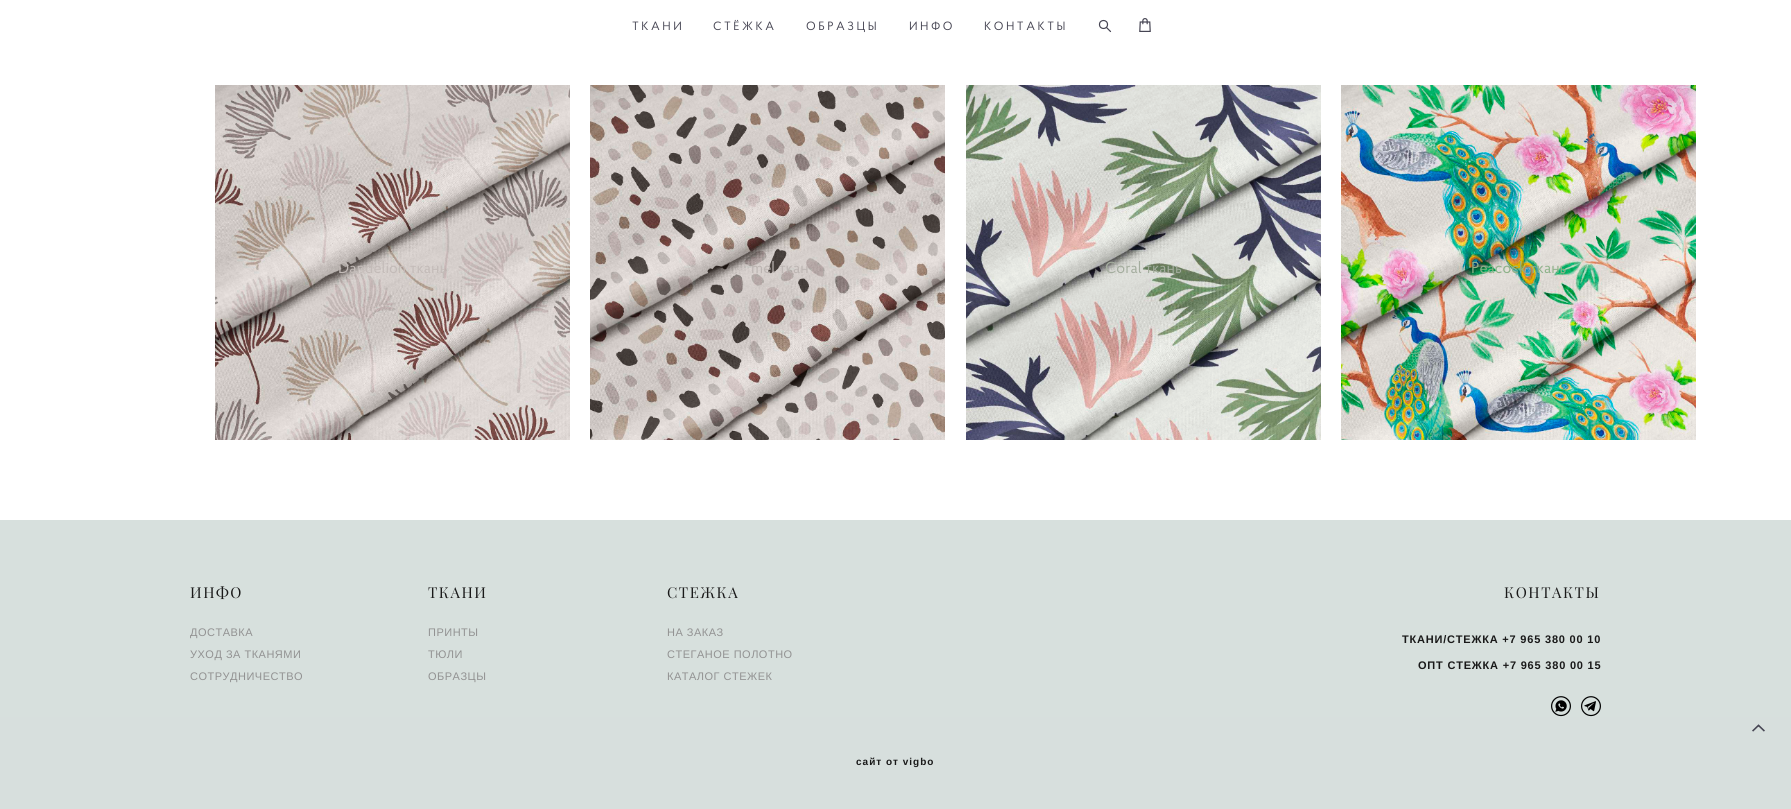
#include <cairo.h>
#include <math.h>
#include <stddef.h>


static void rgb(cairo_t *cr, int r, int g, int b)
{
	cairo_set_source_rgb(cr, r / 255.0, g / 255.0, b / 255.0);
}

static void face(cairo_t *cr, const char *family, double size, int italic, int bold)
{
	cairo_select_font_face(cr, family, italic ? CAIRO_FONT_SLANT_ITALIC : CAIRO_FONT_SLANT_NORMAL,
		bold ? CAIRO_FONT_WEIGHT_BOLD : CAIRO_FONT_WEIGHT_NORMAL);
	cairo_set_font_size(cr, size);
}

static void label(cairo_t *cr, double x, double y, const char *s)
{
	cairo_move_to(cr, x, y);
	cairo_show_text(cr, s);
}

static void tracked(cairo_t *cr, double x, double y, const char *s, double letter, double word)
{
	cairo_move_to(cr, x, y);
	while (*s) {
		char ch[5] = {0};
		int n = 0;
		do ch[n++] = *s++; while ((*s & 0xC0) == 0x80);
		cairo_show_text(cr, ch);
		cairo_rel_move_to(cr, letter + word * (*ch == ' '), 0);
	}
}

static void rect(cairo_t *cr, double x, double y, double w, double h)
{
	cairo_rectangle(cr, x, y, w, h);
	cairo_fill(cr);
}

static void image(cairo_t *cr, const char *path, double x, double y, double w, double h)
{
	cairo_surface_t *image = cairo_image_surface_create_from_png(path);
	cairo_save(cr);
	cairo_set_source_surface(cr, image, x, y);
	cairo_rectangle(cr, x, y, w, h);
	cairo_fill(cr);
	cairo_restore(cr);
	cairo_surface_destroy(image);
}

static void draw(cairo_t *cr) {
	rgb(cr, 255, 255, 255);
	cairo_paint(cr);
	face(cr, "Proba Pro", 12, 0, 0);
	rgb(cr, 70, 69, 83);
	tracked(cr, 632, 30, "ТКАНИ", 2.5, 0);
	tracked(cr, 713, 30, "СТЁЖКА", 2.5, 0);
	tracked(cr, 806, 30, "ОБРАЗЦЫ", 2.5, 0);
	tracked(cr, 909, 30, "ИНФО", 2.5, 0);
	tracked(cr, 984, 30, "КОНТАКТЫ", 2.5, 0);
	cairo_new_path(cr);
	cairo_arc(cr, 1103.5, 24.5, 4, 0, 2 * M_PI);
	cairo_set_line_width(cr, 1.2);
	cairo_stroke(cr);
	cairo_new_path(cr);
	cairo_move_to(cr, 1106.5, 27.5);
	cairo_line_to(cr, 1110.5, 31.5);
	cairo_set_line_cap(cr, CAIRO_LINE_CAP_ROUND);
	cairo_set_line_join(cr, CAIRO_LINE_JOIN_ROUND);
	cairo_stroke(cr);
	image(cr, "image0.png", 1139, 18, 12, 14);
	image(cr, "image1.png", 215, 85, 355, 355);
	face(cr, "Proba Pro", 16, 0, 0);
	rgb(cr, 195, 187, 184);
	label(cr, 338, 273, "Dandelion ткань");
	image(cr, "image2.png", 590, 85, 355, 355);
	rgb(cr, 188, 181, 178);
	label(cr, 751, 273, "mel ткан");
	image(cr, "image3.png", 966, 85, 355, 355);
	rgb(cr, 164, 173, 158);
	label(cr, 1105, 273, "Coral ткань");
	image(cr, "image4.png", 1341, 85, 355, 355);
	rgb(cr, 141, 178, 137);
	label(cr, 1471, 273, "Peacock ткань");
	rgb(cr, 215, 224, 221);
	rect(cr, 0, 520, 1791, 197);
	face(cr, "playfair display", 15, 0, 0);
	rgb(cr, 25, 25, 25);
	tracked(cr, 190, 598, "ИНФО", 1.5, 0);
	face(cr, "Liberation Sans", 11, 0, 0);
	rgb(cr, 146, 146, 146);
	tracked(cr, 190, 636, "ДОСТАВКА", 0.5, 0);
	tracked(cr, 190, 658, "УХОД ЗА ТКАНЯМИ", 0.5, 0);
	tracked(cr, 190, 680, "СОТРУДНИЧЕСТВО", 0.5, 0);
	face(cr, "playfair display", 15, 0, 0);
	rgb(cr, 25, 25, 25);
	tracked(cr, 428, 598, "ТКАНИ", 1.5, 0);
	face(cr, "Liberation Sans", 11, 0, 0);
	rgb(cr, 146, 146, 146);
	tracked(cr, 428, 636, "ПРИНТЫ", 0.5, 0);
	tracked(cr, 428, 658, "ТЮЛИ", 0.5, 0);
	tracked(cr, 428, 680, "ОБРАЗЦЫ", 0.5, 0);
	face(cr, "playfair display", 15, 0, 0);
	rgb(cr, 25, 25, 25);
	tracked(cr, 667, 598, "СТЕЖКА", 1.5, 0);
	face(cr, "Liberation Sans", 11, 0, 0);
	rgb(cr, 146, 146, 146);
	tracked(cr, 667, 636, "НА ЗАКАЗ", 0.5, 0);
	tracked(cr, 667, 658, "СТЕГАНОЕ ПОЛОТНО", 0.5, 0);
	tracked(cr, 667, 680, "КАТАЛОГ СТЕЖЕК", 0.5, 0);
	face(cr, "playfair display", 15, 0, 0);
	rgb(cr, 25, 25, 25);
	tracked(cr, 1504, 598, "КОНТАКТЫ", 1.5, 0);
	face(cr, "Liberation Sans", 11, 0, 1);
	tracked(cr, 1402, 643, "ТКАНИ/СТЕЖКА +7 965 380 00 10", 0.8, 0);
	tracked(cr, 1418, 669, "ОПТ СТЕЖКА +7 965 380 00 15", 0.8, 0);
	image(cr, "image5.png", 1551, 696, 20, 21);
	image(cr, "image6.png", 1581, 696, 20, 21);
	rgb(cr, 215, 223, 221);
	rect(cr, 0, 717, 1791, 92);
	image(cr, "image7.png", 1752, 724, 13, 8);
	face(cr, "Liberation Sans", 10, 0, 1);
	rgb(cr, 25, 25, 25);
	tracked(cr, 856, 765, "сайт от vigbo", 1, 0);
}

int main(void) {
	cairo_surface_t *surface = cairo_image_surface_create(CAIRO_FORMAT_RGB24, 1791, 809);
	cairo_t *cr = cairo_create(surface);
	cairo_font_options_t *options = cairo_font_options_create();
	cairo_font_options_set_hint_metrics(options, CAIRO_HINT_METRICS_OFF);
	cairo_font_options_set_hint_style(options, CAIRO_HINT_STYLE_NONE);
	cairo_set_font_options(cr, options);
	cairo_set_miter_limit(cr, 4);
	draw(cr);
	cairo_surface_write_to_png(surface, "render.png");
	cairo_font_options_destroy(options);
	cairo_destroy(cr);
	cairo_surface_destroy(surface);
	return 0;
}
